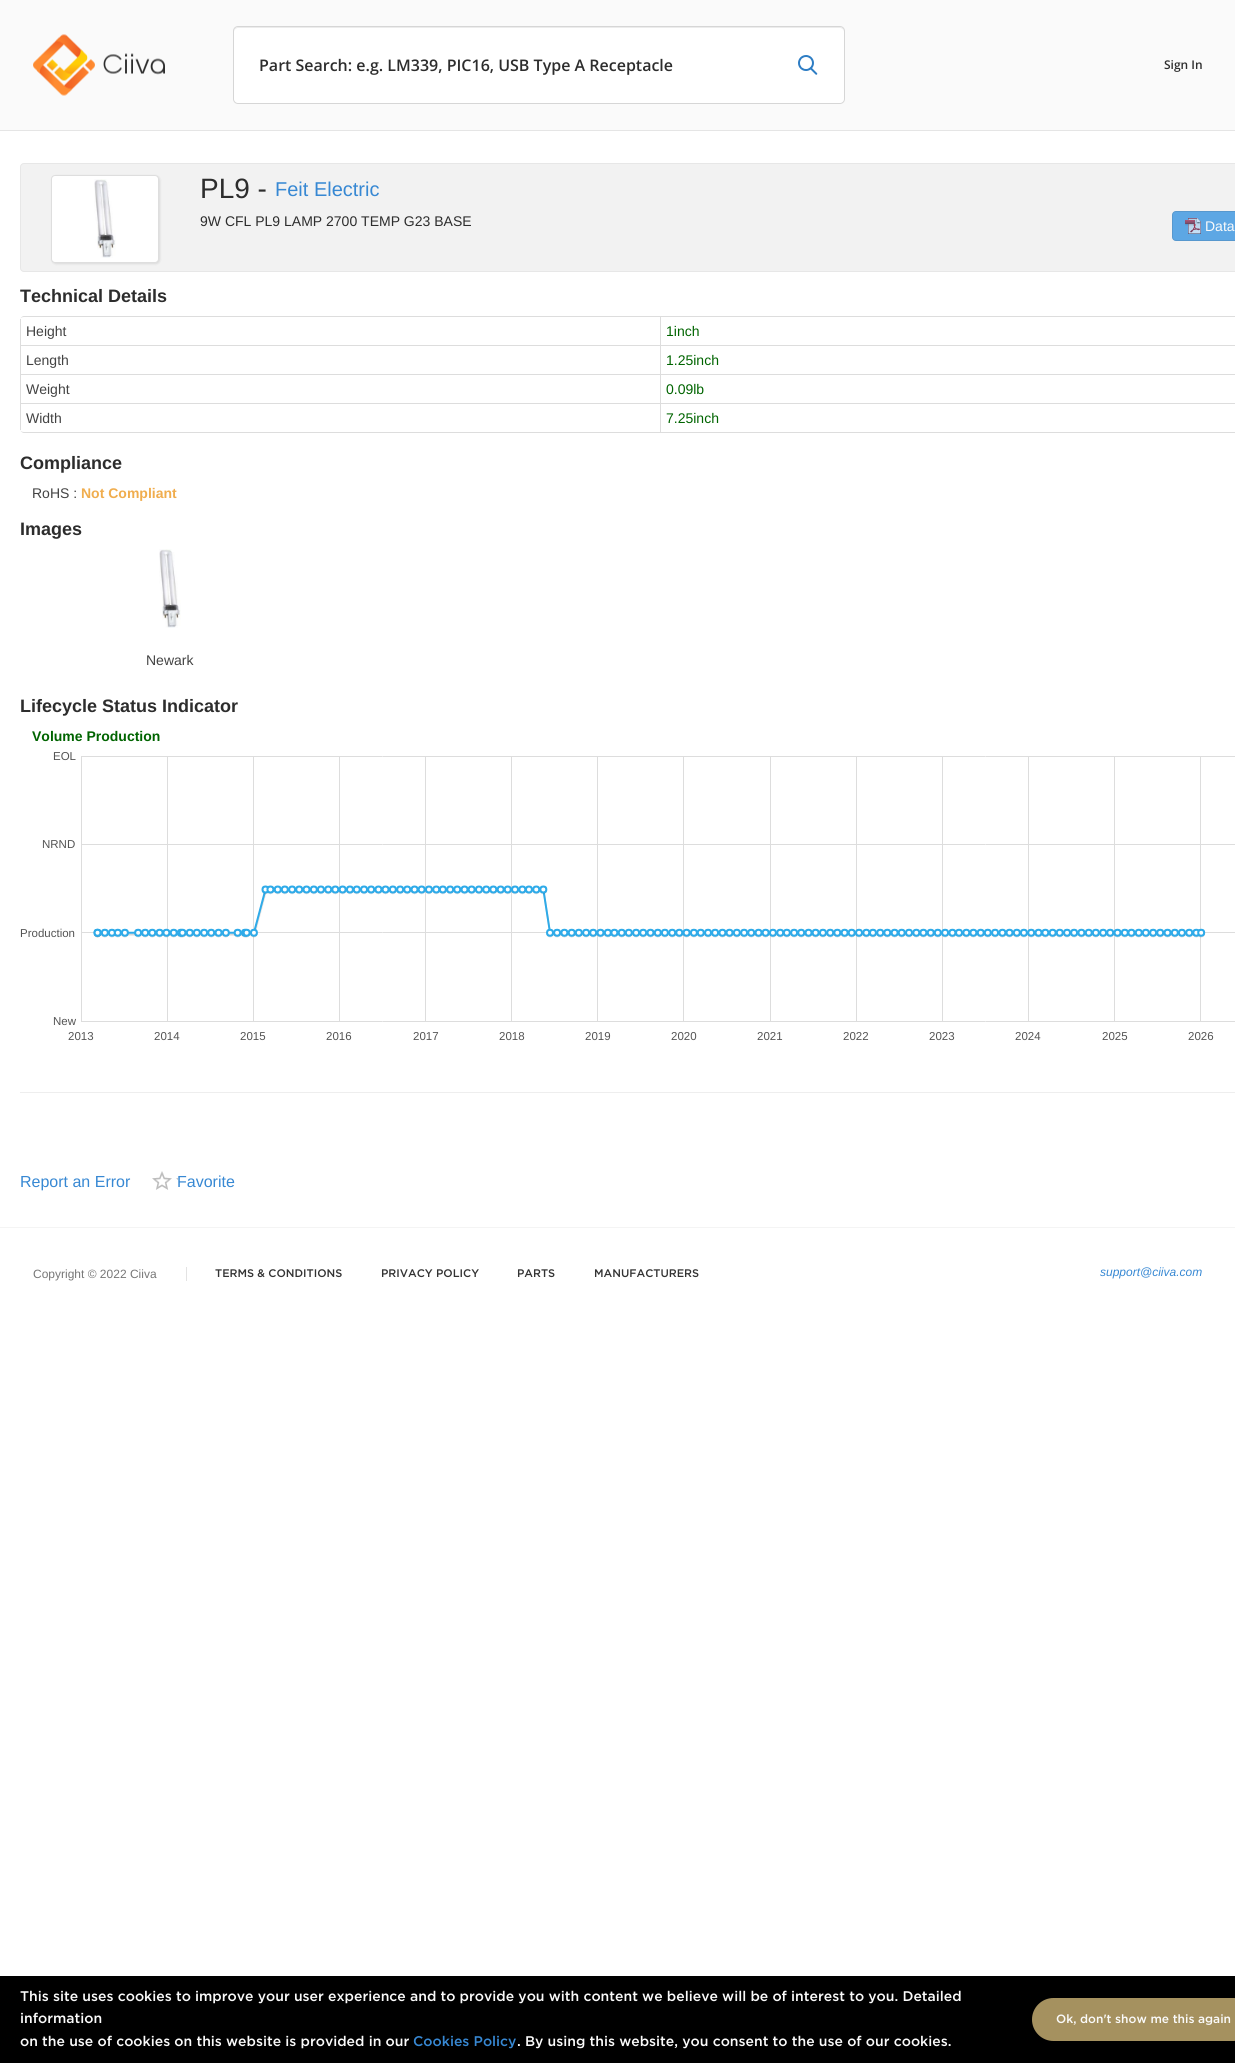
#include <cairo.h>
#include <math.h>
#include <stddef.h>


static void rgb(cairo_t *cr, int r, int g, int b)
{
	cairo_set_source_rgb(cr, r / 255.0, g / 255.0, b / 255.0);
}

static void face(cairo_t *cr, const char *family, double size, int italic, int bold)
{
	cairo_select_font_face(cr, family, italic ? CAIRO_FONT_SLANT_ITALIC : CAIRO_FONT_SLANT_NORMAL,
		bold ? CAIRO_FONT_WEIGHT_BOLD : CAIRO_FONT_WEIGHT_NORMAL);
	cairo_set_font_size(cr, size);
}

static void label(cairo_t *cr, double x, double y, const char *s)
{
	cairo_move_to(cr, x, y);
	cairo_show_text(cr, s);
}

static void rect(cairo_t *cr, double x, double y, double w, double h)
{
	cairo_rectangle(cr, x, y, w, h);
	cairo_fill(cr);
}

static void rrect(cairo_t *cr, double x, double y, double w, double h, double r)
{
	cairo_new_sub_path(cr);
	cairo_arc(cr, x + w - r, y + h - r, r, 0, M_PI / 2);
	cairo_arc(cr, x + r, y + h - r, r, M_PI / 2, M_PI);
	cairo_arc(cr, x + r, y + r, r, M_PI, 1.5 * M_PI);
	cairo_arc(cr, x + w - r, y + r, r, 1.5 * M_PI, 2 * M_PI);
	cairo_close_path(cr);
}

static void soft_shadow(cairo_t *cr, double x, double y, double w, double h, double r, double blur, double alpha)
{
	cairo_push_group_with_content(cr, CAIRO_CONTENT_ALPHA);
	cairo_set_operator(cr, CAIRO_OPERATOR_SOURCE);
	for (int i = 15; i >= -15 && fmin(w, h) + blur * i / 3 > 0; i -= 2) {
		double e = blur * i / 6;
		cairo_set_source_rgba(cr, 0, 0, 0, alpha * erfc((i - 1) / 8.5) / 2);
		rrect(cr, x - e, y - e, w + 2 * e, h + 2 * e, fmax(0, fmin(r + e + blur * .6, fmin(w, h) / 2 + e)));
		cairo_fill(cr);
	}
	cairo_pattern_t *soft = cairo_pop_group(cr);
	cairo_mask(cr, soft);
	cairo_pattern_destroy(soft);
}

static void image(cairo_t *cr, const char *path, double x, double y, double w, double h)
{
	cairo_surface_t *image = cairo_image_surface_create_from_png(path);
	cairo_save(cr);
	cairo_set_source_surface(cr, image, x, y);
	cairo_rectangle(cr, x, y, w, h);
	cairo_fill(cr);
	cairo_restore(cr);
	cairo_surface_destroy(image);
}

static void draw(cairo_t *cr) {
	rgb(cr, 255, 255, 255);
	cairo_paint(cr);
	rgb(cr, 250, 250, 250);
	rect(cr, 0, 0, 1235, 130);
	rgb(cr, 229, 229, 229);
	rect(cr, 0, 130, 1235, 1);
	image(cr, "image0.png", 33, 34, 132, 62);
	rgb(cr, 255, 255, 255);
	rrect(cr, 233, 26, 612, 78, 5);
	cairo_fill(cr);
	rgb(cr, 236, 236, 236);
	cairo_new_path(cr);
	cairo_move_to(cr, 238, 28);
	cairo_line_to(cr, 840, 28);
	cairo_curve_to(cr, 842, 28, 844, 30, 844, 32);
	cairo_line_to(cr, 844, 31);
	cairo_curve_to(cr, 844, 29, 842, 27, 840, 27);
	cairo_line_to(cr, 238, 27);
	cairo_curve_to(cr, 236, 27, 234, 29, 234, 31);
	cairo_line_to(cr, 234, 32);
	cairo_curve_to(cr, 234, 30, 236, 28, 238, 28);
	cairo_close_path(cr);
	cairo_fill(cr);
	rrect(cr, 233.5, 26.5, 611, 77, 4.5);
	rgb(cr, 214, 214, 214);
	cairo_set_line_width(cr, 1);
	cairo_stroke(cr);
	face(cr, "Open Sans SemiBold", 16, 0, 0);
	rgb(cr, 45, 45, 45);
	label(cr, 259, 71, "Part Search: e.g. LM339, PIC16, USB Type A Receptacle");
	image(cr, "image1.png", 798, 55, 20, 20);
	face(cr, "Open Sans SemiBold", 12, 0, 0);
	label(cr, 1164, 69, "Sign In");
	rgb(cr, 242, 242, 242);
	rrect(cr, 20.5, 163.5, 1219, 108, 3.5);
	cairo_fill_preserve(cr);
	rgb(cr, 231, 231, 231);
	cairo_stroke(cr);
	rgb(cr, 0, 0, 0);
	soft_shadow(cr, 52, 176, 108, 88, 4, 1, 0.1);
	rgb(cr, 255, 255, 255);
	rrect(cr, 51.5, 175.5, 107, 87, 3.5);
	cairo_fill_preserve(cr);
	rgb(cr, 222, 222, 222);
	cairo_stroke(cr);
	image(cr, "image2.png", 94, 179, 22, 79);
	face(cr, "Liberation Sans", 28, 0, 0);
	rgb(cr, 45, 45, 45);
	label(cr, 200, 198, "PL9 -");
	face(cr, "Liberation Sans", 20, 0, 0);
	rgb(cr, 55, 136, 211);
	label(cr, 275, 196, "Feit Electric");
	face(cr, "Liberation Sans", 14, 0, 0);
	rgb(cr, 45, 45, 45);
	label(cr, 200, 226, "9W CFL PL9 LAMP 2700 TEMP G23 BASE");
	rgb(cr, 93, 167, 228);
	rrect(cr, 1172.5, 211.5, 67, 29, 3.5);
	cairo_fill_preserve(cr);
	rgb(cr, 87, 152, 206);
	cairo_stroke(cr);
	image(cr, "image3.png", 1185, 218, 16, 16);
	rgb(cr, 250, 250, 250);
	label(cr, 1205, 231, "Data");
	face(cr, "Liberation Sans", 18, 0, 1);
	rgb(cr, 45, 45, 45);
	label(cr, 20, 302, "Technical Details");
	rgb(cr, 221, 221, 221);
	cairo_set_fill_rule(cr, CAIRO_FILL_RULE_EVEN_ODD);
	cairo_new_path(cr);
	cairo_move_to(cr, 24, 316);
	cairo_line_to(cr, 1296, 316);
	cairo_curve_to(cr, 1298, 316, 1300, 318, 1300, 320);
	cairo_line_to(cr, 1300, 429);
	cairo_curve_to(cr, 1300, 431, 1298, 433, 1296, 433);
	cairo_line_to(cr, 24, 433);
	cairo_curve_to(cr, 22, 433, 20, 431, 20, 429);
	cairo_line_to(cr, 20, 320);
	cairo_curve_to(cr, 20, 318, 22, 316, 24, 316);
	cairo_close_path(cr);
	cairo_move_to(cr, 24, 317);
	cairo_line_to(cr, 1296, 317);
	cairo_curve_to(cr, 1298, 317, 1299, 318, 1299, 320);
	cairo_line_to(cr, 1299, 429);
	cairo_curve_to(cr, 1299, 431, 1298, 432, 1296, 432);
	cairo_line_to(cr, 24, 432);
	cairo_curve_to(cr, 22, 432, 20, 431, 20, 429);
	cairo_line_to(cr, 20, 320);
	cairo_curve_to(cr, 20, 318, 22, 317, 24, 317);
	cairo_close_path(cr);
	cairo_fill(cr);
	rect(cr, 20, 319, 1, 26);
	face(cr, "Liberation Sans", 14, 0, 0);
	rgb(cr, 67, 67, 67);
	label(cr, 26, 336, "Height");
	rgb(cr, 221, 221, 221);
	rect(cr, 660, 317, 1, 28);
	rgb(cr, 0, 100, 0);
	label(cr, 666, 336, "1inch");
	rgb(cr, 221, 221, 221);
	rect(cr, 20, 345, 1215, 1);
	rect(cr, 20, 345, 1, 29);
	rgb(cr, 67, 67, 67);
	label(cr, 26, 365, "Length");
	rgb(cr, 221, 221, 221);
	rect(cr, 660, 345, 1, 29);
	rgb(cr, 0, 100, 0);
	label(cr, 666, 365, "1.25inch");
	rgb(cr, 221, 221, 221);
	rect(cr, 20, 374, 1215, 1);
	rect(cr, 20, 374, 1, 29);
	rgb(cr, 67, 67, 67);
	label(cr, 26, 394, "Weight");
	rgb(cr, 221, 221, 221);
	rect(cr, 660, 374, 1, 29);
	rgb(cr, 0, 100, 0);
	label(cr, 666, 394, "0.09lb");
	rgb(cr, 221, 221, 221);
	rect(cr, 20, 403, 1215, 1);
	rect(cr, 20, 403, 1, 27);
	rgb(cr, 67, 67, 67);
	label(cr, 26, 423, "Width");
	rgb(cr, 221, 221, 221);
	rect(cr, 660, 403, 1, 29);
	rgb(cr, 0, 100, 0);
	label(cr, 666, 423, "7.25inch");
	face(cr, "Liberation Sans", 18, 0, 1);
	rgb(cr, 45, 45, 45);
	label(cr, 20, 469, "Compliance");
	face(cr, "Liberation Sans", 14, 0, 0);
	rgb(cr, 67, 67, 67);
	label(cr, 32, 498, "RoHS :");
	face(cr, "Liberation Sans", 14, 0, 1);
	rgb(cr, 240, 173, 78);
	label(cr, 81, 498, "Not Compliant");
	face(cr, "Liberation Sans", 18, 0, 1);
	rgb(cr, 45, 45, 45);
	label(cr, 20, 535, "Images");
	image(cr, "image2.png", 159, 549, 22, 79);
	face(cr, "Liberation Sans", 14, 0, 0);
	rgb(cr, 67, 67, 67);
	label(cr, 146, 665, "Newark");
	face(cr, "Liberation Sans", 18, 0, 1);
	rgb(cr, 45, 45, 45);
	label(cr, 20, 712, "Lifecycle Status Indicator");
	face(cr, "Liberation Sans", 14, 0, 1);
	rgb(cr, 0, 100, 0);
	label(cr, 32, 741, "Volume Production");
	face(cr, "Liberation Sans", 11.5, 0, 0);
	rgb(cr, 84, 84, 84);
	label(cr, 53, 760, "EOL");
	label(cr, 42, 848, "NRND");
	label(cr, 20, 937, "Production");
	label(cr, 53, 1025, "New");
	label(cr, 68, 1040, "2013");
	label(cr, 154, 1040, "2014");
	label(cr, 240, 1040, "2015");
	label(cr, 326, 1040, "2016");
	label(cr, 413, 1040, "2017");
	label(cr, 499, 1040, "2018");
	label(cr, 585, 1040, "2019");
	label(cr, 671, 1040, "2020");
	label(cr, 757, 1040, "2021");
	label(cr, 843, 1040, "2022");
	label(cr, 929, 1040, "2023");
	label(cr, 1015, 1040, "2024");
	label(cr, 1102, 1040, "2025");
	label(cr, 1188, 1040, "2026");
	image(cr, "image4.png", 81, 756, 1154, 266);
	rgb(cr, 238, 238, 238);
	rect(cr, 20, 1092, 1215, 1);
	face(cr, "Liberation Sans", 16, 0, 0);
	rgb(cr, 55, 136, 211);
	label(cr, 20, 1187, "Report an Error");
	image(cr, "image5.png", 152, 1171, 26, 19);
	label(cr, 177, 1187, "Favorite");
	rgb(cr, 244, 244, 244);
	rect(cr, 0, 1227, 1235, 1);
	face(cr, "Liberation Sans", 12, 0, 0);
	rgb(cr, 119, 119, 119);
	label(cr, 33, 1278, "Copyright © 2022 Ciiva");
	rgb(cr, 227, 227, 227);
	rect(cr, 186, 1267, 1, 14);
	face(cr, "Gotham Medium", 11, 0, 0);
	rgb(cr, 51, 51, 51);
	label(cr, 215, 1277, "TERMS & CONDITIONS");
	label(cr, 381, 1277, "PRIVACY POLICY");
	label(cr, 517, 1277, "PARTS");
	label(cr, 594, 1277, "MANUFACTURERS");
	face(cr, "Liberation Sans", 12, 1, 0);
	rgb(cr, 55, 136, 211);
	label(cr, 1100, 1276, "support@ciiva.com");
	rgb(cr, 0, 0, 0);
	rect(cr, 0, 1976, 1235, 87);
	face(cr, "Gotham Medium", 14, 0, 0);
	rgb(cr, 250, 250, 250);
	label(cr, 20, 2001, "This site uses cookies to improve your user experience and to provide you with content we believe will be of interest to you. Detailed");
	label(cr, 20, 2023, "information");
	label(cr, 20, 2046, "on the use of cookies on this website is provided in our");
	rgb(cr, 55, 136, 211);
	label(cr, 413, 2046, "Cookies Policy");
	rgb(cr, 250, 250, 250);
	label(cr, 517, 2046, ". By using this website, you consent to the use of our cookies.");
	rgb(cr, 165, 145, 95);
	rrect(cr, 1032, 1998, 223, 43, 21.5);
	cairo_fill(cr);
	face(cr, "Gotham Medium", 12, 0, 0);
	rgb(cr, 250, 250, 250);
	label(cr, 1056, 2023, "Ok, don't show me this again");
}

int main(void) {
	cairo_surface_t *surface = cairo_image_surface_create(CAIRO_FORMAT_RGB24, 1235, 2063);
	cairo_t *cr = cairo_create(surface);
	cairo_font_options_t *options = cairo_font_options_create();
	cairo_font_options_set_hint_metrics(options, CAIRO_HINT_METRICS_OFF);
	cairo_font_options_set_hint_style(options, CAIRO_HINT_STYLE_NONE);
	cairo_set_font_options(cr, options);
	cairo_set_miter_limit(cr, 4);
	draw(cr);
	cairo_surface_write_to_png(surface, "render.png");
	cairo_font_options_destroy(options);
	cairo_destroy(cr);
	cairo_surface_destroy(surface);
	return 0;
}
